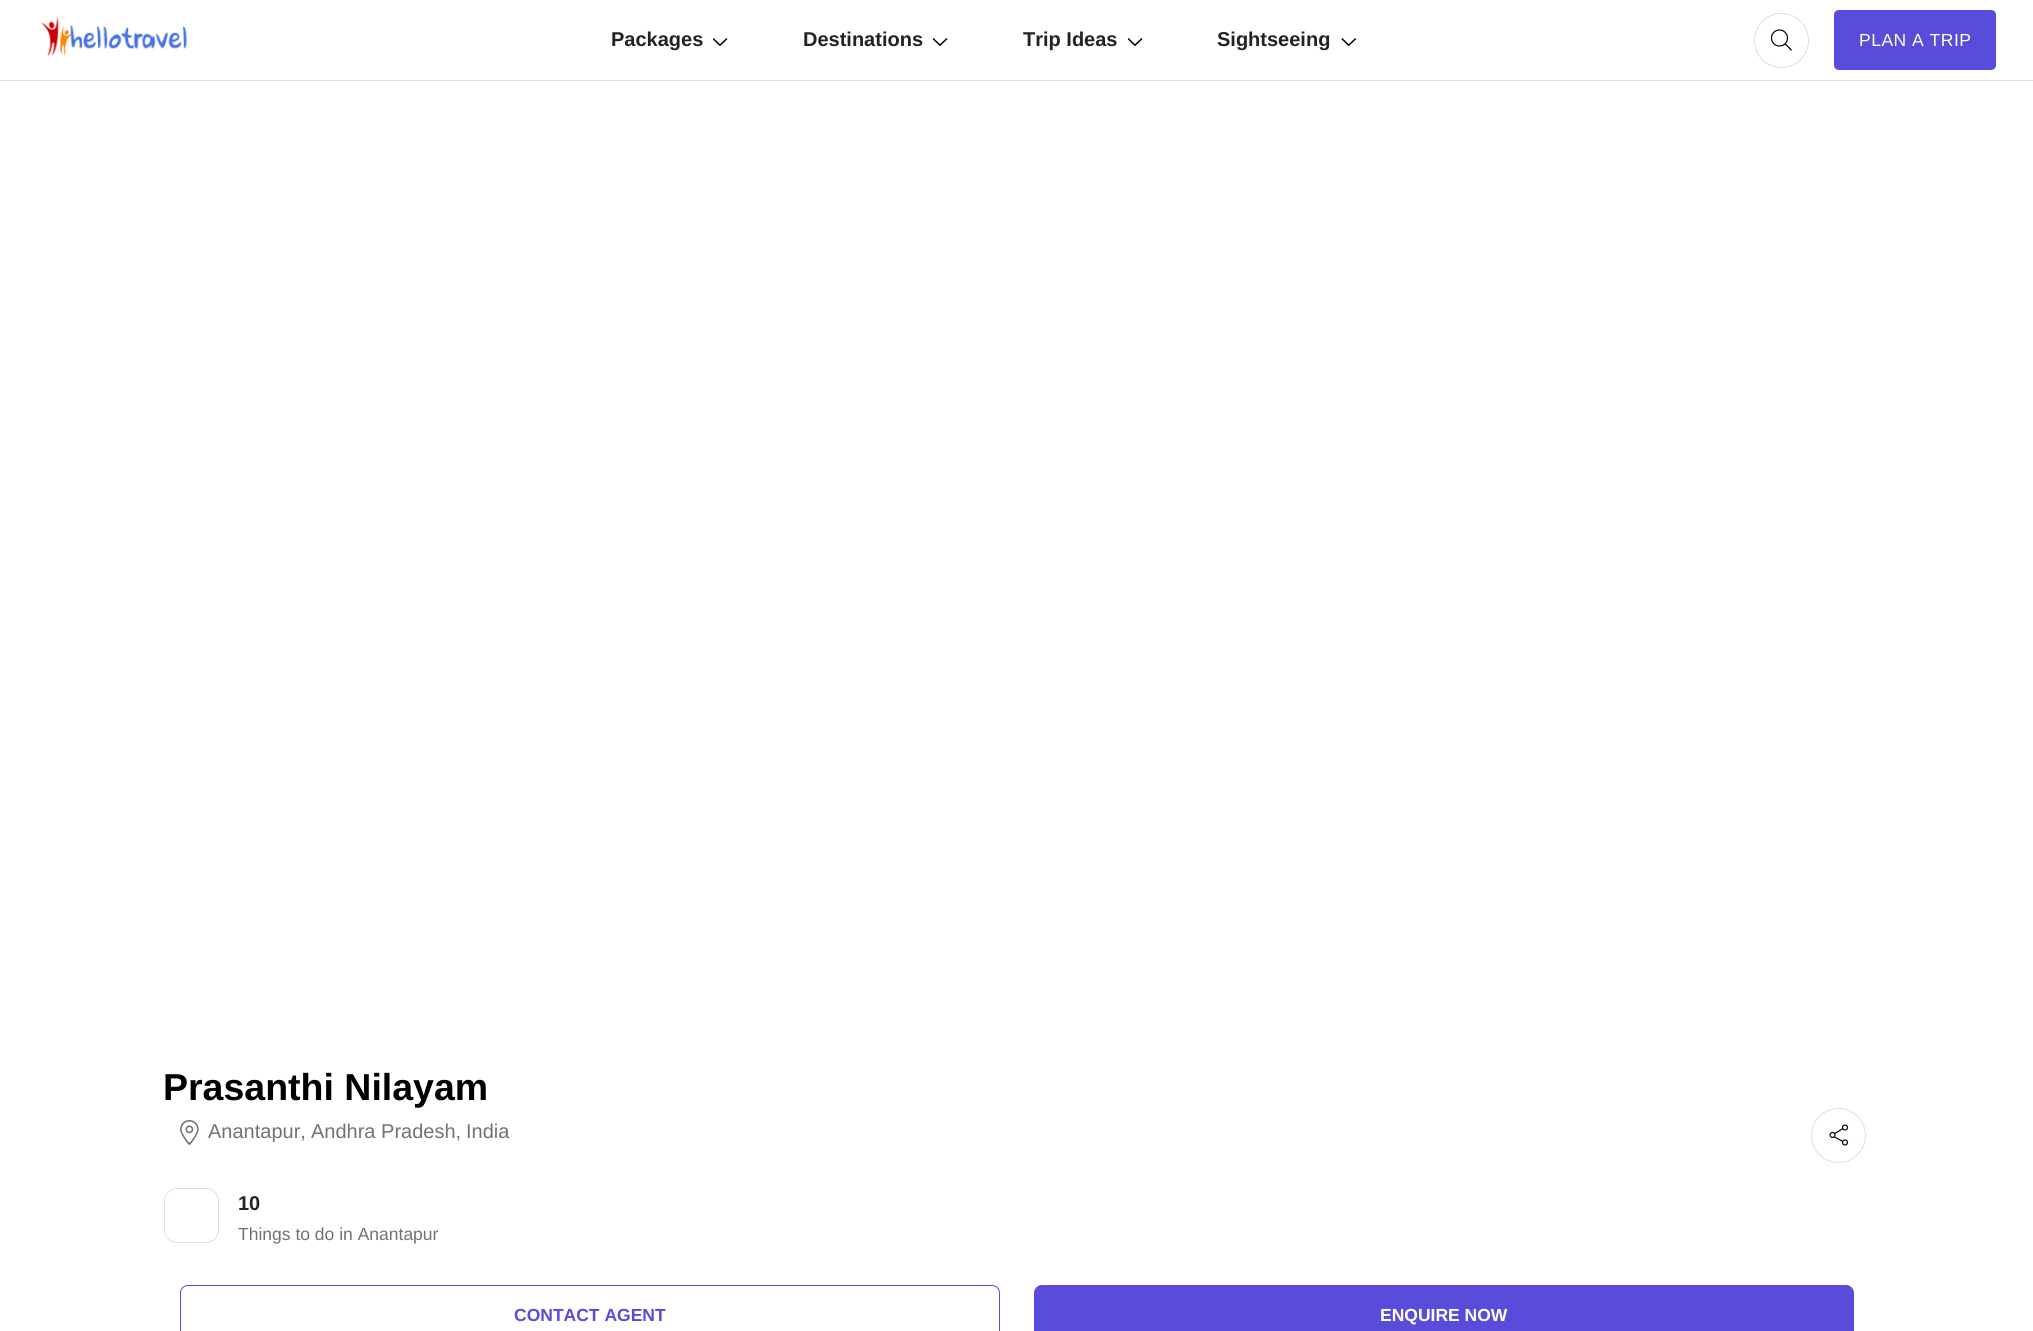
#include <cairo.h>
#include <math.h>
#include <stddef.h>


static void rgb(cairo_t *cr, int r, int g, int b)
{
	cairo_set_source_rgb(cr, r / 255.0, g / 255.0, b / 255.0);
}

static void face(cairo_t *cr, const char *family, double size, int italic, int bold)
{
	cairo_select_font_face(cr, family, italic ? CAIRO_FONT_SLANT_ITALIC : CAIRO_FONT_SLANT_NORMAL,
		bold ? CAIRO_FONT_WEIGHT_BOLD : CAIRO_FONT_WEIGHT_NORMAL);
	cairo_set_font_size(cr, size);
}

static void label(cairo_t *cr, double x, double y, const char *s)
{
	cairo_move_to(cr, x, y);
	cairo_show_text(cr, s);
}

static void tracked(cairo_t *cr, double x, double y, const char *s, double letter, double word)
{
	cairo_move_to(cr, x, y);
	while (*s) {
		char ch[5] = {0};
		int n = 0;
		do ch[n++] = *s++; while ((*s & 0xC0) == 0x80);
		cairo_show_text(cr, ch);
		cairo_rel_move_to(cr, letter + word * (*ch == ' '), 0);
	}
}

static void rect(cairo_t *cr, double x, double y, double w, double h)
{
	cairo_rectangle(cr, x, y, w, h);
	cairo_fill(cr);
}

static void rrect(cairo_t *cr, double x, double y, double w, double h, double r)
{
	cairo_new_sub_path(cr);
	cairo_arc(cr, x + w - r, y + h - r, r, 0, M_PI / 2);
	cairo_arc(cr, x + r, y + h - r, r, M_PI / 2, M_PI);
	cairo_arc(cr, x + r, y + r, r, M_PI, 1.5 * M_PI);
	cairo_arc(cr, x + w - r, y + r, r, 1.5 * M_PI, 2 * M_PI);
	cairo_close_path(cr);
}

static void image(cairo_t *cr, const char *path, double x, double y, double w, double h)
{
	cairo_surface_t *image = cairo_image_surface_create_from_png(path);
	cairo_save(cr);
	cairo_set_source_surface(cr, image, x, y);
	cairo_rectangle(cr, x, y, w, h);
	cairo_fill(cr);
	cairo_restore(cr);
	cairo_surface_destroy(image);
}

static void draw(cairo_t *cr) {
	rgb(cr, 255, 255, 255);
	cairo_paint(cr);
	image(cr, "image0.png", 41, 16, 146, 40);
	face(cr, "Liberation Sans", 20, 0, 1);
	rgb(cr, 35, 35, 35);
	label(cr, 611, 46, "Packages");
	image(cr, "image1.png", 713, 38, 15, 8);
	label(cr, 803, 46, "Destinations");
	image(cr, "image1.png", 933, 38, 15, 8);
	label(cr, 1023, 46, "Trip Ideas");
	image(cr, "image1.png", 1128, 38, 15, 8);
	label(cr, 1217, 46, "Sightseeing");
	image(cr, "image2.png", 1341, 38, 15, 8);
	cairo_arc(cr, 1781.5, 40.5, 27, 0, 2 * M_PI);
	rgb(cr, 222, 222, 222);
	cairo_set_line_width(cr, 1);
	cairo_stroke(cr);
	image(cr, "image3.png", 1770, 29, 22, 22);
	rgb(cr, 89, 76, 218);
	rrect(cr, 1834, 10, 162, 60, 5);
	cairo_fill(cr);
	face(cr, "Liberation Sans", 17.5, 0, 0);
	rgb(cr, 255, 255, 255);
	tracked(cr, 1859, 46, "PLAN A TRIP", 0.5, 0);
	rgb(cr, 222, 222, 222);
	rect(cr, 0, 80, 2033, 1);
	face(cr, "Liberation Sans", 37.5, 0, 1);
	rgb(cr, 0, 0, 0);
	label(cr, 163, 1100, "Prasanthi Nilayam");
	image(cr, "image4.png", 180, 1120, 19, 25);
	face(cr, "Liberation Sans", 20, 0, 0);
	rgb(cr, 114, 114, 114);
	label(cr, 208, 1138, "Anantapur,");
	label(cr, 311, 1138, "Andhra Pradesh,");
	label(cr, 466, 1138, "India");
	cairo_new_path(cr);
	cairo_arc(cr, 1838.5, 1135.5, 27, 0, 2 * M_PI);
	rgb(cr, 222, 222, 222);
	cairo_stroke(cr);
	image(cr, "image5.png", 1829, 1124, 20, 22);
	rrect(cr, 164.5, 1188.5, 54, 54, 12.5);
	cairo_stroke(cr);
	face(cr, "Liberation Sans", 20, 0, 1);
	rgb(cr, 35, 35, 35);
	label(cr, 238, 1210, "10");
	face(cr, "Liberation Sans", 17.5, 0, 0);
	rgb(cr, 114, 114, 114);
	label(cr, 238, 1240, "Things to do in Anantapur");
	rrect(cr, 180.5, 1285.5, 819, 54, 7.5);
	rgb(cr, 89, 76, 218);
	cairo_stroke(cr);
	face(cr, "Liberation Sans", 17.5, 0, 1);
	label(cr, 514, 1321, "CONTACT AGENT");
	rrect(cr, 1034, 1285, 820, 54, 8);
	cairo_fill(cr);
	rgb(cr, 255, 255, 255);
	label(cr, 1380, 1321, "ENQUIRE NOW");
}

int main(void) {
	cairo_surface_t *surface = cairo_image_surface_create(CAIRO_FORMAT_RGB24, 2033, 1331);
	cairo_t *cr = cairo_create(surface);
	cairo_font_options_t *options = cairo_font_options_create();
	cairo_font_options_set_hint_metrics(options, CAIRO_HINT_METRICS_OFF);
	cairo_font_options_set_hint_style(options, CAIRO_HINT_STYLE_NONE);
	cairo_set_font_options(cr, options);
	cairo_set_miter_limit(cr, 4);
	draw(cr);
	cairo_surface_write_to_png(surface, "render.png");
	cairo_font_options_destroy(options);
	cairo_destroy(cr);
	cairo_surface_destroy(surface);
	return 0;
}
